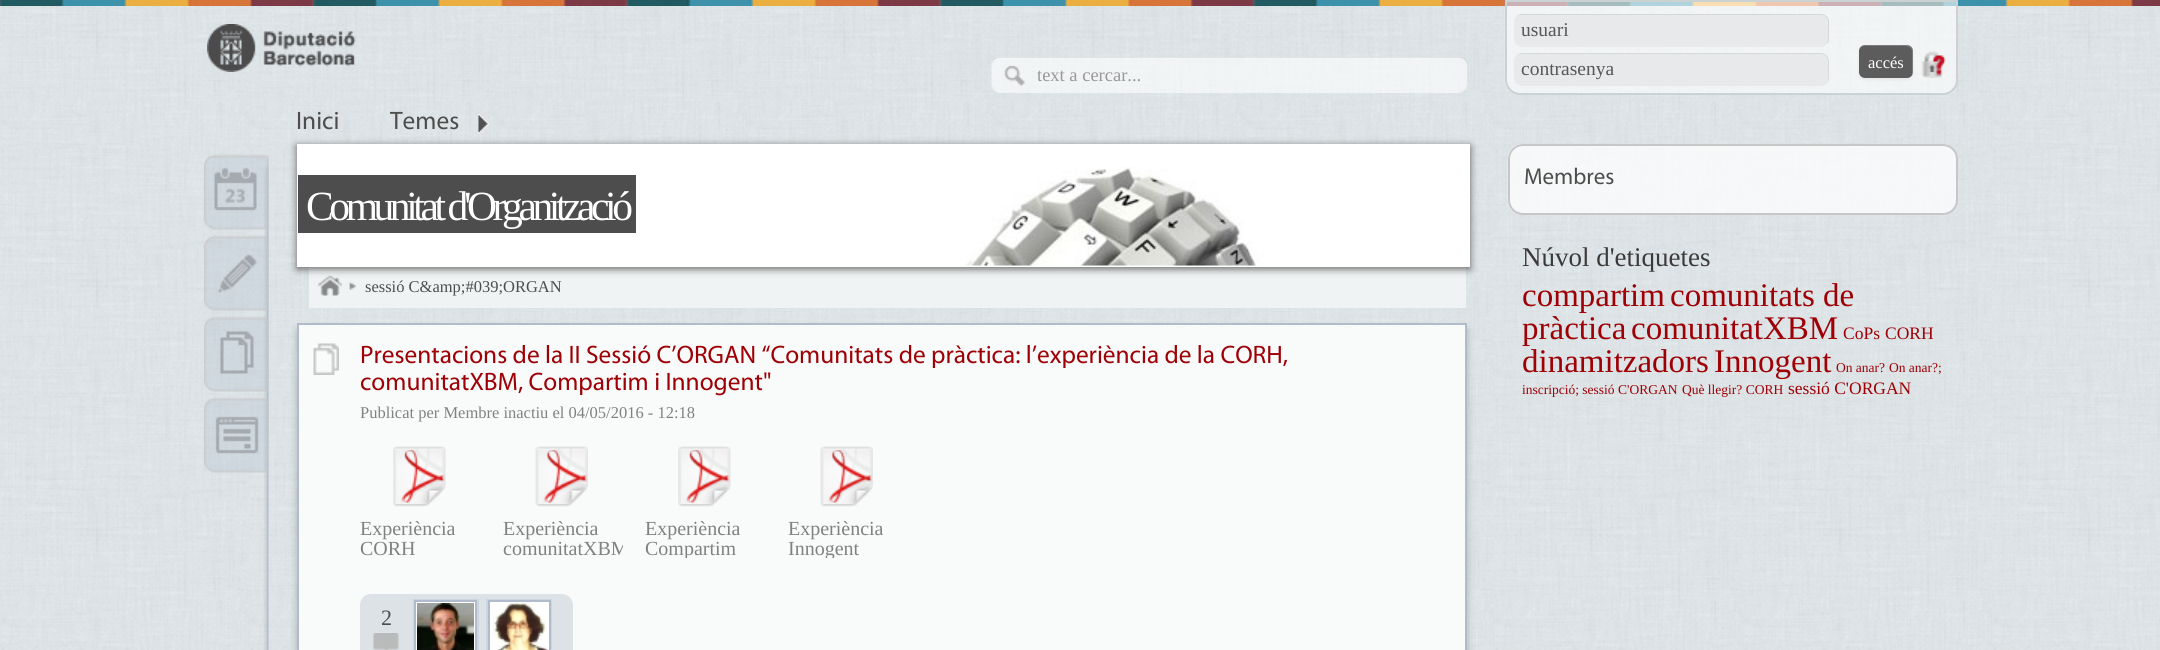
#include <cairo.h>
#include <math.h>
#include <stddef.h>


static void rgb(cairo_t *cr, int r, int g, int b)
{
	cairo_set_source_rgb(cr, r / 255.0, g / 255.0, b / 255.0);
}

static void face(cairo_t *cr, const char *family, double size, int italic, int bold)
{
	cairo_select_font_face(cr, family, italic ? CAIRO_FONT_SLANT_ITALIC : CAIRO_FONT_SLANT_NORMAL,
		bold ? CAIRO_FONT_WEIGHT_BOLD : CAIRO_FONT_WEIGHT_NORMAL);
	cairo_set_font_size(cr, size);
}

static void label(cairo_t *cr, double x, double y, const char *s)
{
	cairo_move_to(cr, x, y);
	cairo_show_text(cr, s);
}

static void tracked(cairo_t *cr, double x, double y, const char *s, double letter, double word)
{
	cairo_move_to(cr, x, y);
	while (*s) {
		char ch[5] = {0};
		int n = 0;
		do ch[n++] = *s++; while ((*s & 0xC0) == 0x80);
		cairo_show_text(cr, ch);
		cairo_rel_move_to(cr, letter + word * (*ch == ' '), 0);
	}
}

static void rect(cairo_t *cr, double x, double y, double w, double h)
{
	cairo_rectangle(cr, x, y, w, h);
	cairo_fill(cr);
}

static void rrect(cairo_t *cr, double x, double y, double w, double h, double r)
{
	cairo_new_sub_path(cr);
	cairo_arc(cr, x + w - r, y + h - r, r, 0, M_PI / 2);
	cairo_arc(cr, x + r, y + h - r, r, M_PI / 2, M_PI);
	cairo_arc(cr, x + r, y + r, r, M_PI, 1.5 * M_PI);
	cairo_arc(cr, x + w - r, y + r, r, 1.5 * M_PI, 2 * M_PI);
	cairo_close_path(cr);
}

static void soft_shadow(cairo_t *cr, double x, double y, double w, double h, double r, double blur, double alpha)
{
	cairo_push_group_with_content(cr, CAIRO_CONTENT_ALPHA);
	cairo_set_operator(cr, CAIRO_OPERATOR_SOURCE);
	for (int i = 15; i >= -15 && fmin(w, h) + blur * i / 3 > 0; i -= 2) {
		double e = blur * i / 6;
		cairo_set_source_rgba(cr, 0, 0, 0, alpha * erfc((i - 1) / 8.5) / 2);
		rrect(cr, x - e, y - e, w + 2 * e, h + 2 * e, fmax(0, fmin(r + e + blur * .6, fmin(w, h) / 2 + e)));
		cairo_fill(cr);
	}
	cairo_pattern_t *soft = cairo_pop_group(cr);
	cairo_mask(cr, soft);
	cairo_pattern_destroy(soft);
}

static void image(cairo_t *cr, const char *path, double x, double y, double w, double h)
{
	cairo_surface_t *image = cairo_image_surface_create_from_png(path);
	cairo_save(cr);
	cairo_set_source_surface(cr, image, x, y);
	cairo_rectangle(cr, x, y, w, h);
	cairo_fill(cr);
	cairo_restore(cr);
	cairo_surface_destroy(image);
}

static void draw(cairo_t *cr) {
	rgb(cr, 255, 255, 255);
	cairo_paint(cr);
	image(cr, "image0.png", 0, 0, 2160, 650);
	image(cr, "image1.png", 0, 0, 2160, 6);
	image(cr, "image2.png", 207, 24, 149, 48);
	image(cr, "image3.png", 1504, 0, 454, 95);
	cairo_new_path(cr);
	cairo_move_to(cr, 1506, 1);
	cairo_line_to(cr, 1957, 1);
	cairo_line_to(cr, 1957, 80);
	cairo_curve_to(cr, 1957, 87.5, 1950.5, 94, 1943, 94);
	cairo_line_to(cr, 1520, 94);
	cairo_curve_to(cr, 1512.5, 94, 1506, 87.5, 1506, 80);
	cairo_close_path(cr);
	rgb(cr, 203, 210, 212);
	cairo_stroke(cr);
	rgb(cr, 231, 233, 234);
	rrect(cr, 1514, 14, 315, 33, 8);
	cairo_fill(cr);
	rgb(cr, 214, 216, 216);
	cairo_new_path(cr);
	cairo_move_to(cr, 1521, 15);
	cairo_line_to(cr, 1821, 15);
	cairo_curve_to(cr, 1825, 15, 1828, 18, 1828, 22);
	cairo_line_to(cr, 1828, 40);
	cairo_line_to(cr, 1827, 44);
	cairo_curve_to(cr, 1828, 43, 1829, 41, 1829, 39);
	cairo_line_to(cr, 1829, 22);
	cairo_curve_to(cr, 1829, 18, 1825, 14, 1821, 14);
	cairo_line_to(cr, 1522, 14);
	cairo_curve_to(cr, 1518, 14, 1514, 18, 1514, 22);
	cairo_curve_to(cr, 1514, 18, 1517, 15, 1521, 15);
	cairo_close_path(cr);
	cairo_fill(cr);
	face(cr, "Liberation Serif", 19.5, 0, 0);
	rgb(cr, 87, 87, 87);
	label(cr, 1521, 36, "usuari");
	rgb(cr, 0, 0, 0);
	soft_shadow(cr, 1859, 47, 54, 33, 6, 1.5, 0.05);
	rgb(cr, 92, 92, 92);
	rrect(cr, 1859, 45, 54, 33, 6);
	cairo_fill(cr);
	cairo_set_source_rgba(cr, 1, 1, 1, 0.2);
	cairo_new_path(cr);
	cairo_move_to(cr, 1864, 46);
	cairo_line_to(cr, 1899, 46);
	cairo_curve_to(cr, 1903, 46, 1911, 45, 1912, 51);
	cairo_line_to(cr, 1912, 76);
	cairo_curve_to(cr, 1913, 75, 1913, 73, 1913, 72);
	cairo_line_to(cr, 1913, 51);
	cairo_curve_to(cr, 1913, 48, 1910, 45, 1907, 45);
	cairo_line_to(cr, 1865, 45);
	cairo_curve_to(cr, 1863, 45, 1861, 46, 1860, 48);
	cairo_curve_to(cr, 1861, 47, 1863, 46, 1864, 46);
	cairo_close_path(cr);
	cairo_fill(cr);
	face(cr, "Liberation Serif", 16.5, 0, 0);
	rgb(cr, 255, 255, 255);
	label(cr, 1868, 68, "accés");
	rgb(cr, 231, 233, 234);
	rrect(cr, 1514, 53, 315, 33, 8);
	cairo_fill(cr);
	cairo_set_source_rgba(cr, 0, 0, 0, 0.07);
	cairo_new_path(cr);
	cairo_move_to(cr, 1521, 54);
	cairo_line_to(cr, 1821, 54);
	cairo_curve_to(cr, 1825, 54, 1828, 57, 1828, 62);
	cairo_line_to(cr, 1828, 80);
	cairo_line_to(cr, 1828, 83);
	cairo_curve_to(cr, 1828, 81, 1829, 80, 1829, 78);
	cairo_line_to(cr, 1829, 61);
	cairo_curve_to(cr, 1829, 57, 1825, 53, 1821, 53);
	cairo_line_to(cr, 1522, 53);
	cairo_curve_to(cr, 1518, 53, 1514, 57, 1514, 61);
	cairo_line_to(cr, 1514, 62);
	cairo_curve_to(cr, 1514, 57, 1517, 54, 1521, 54);
	cairo_close_path(cr);
	cairo_fill(cr);
	face(cr, "Liberation Serif", 19.5, 0, 0);
	rgb(cr, 87, 87, 87);
	label(cr, 1521, 75, "contrasenya");
	image(cr, "image4.png", 1919, 51, 27, 27);
	image(cr, "image5.png", 991, 57, 476, 36);
	cairo_set_source_rgba(cr, 0, 0, 0, 0.07);
	cairo_new_path(cr);
	cairo_move_to(cr, 998, 58);
	cairo_line_to(cr, 1461, 58);
	cairo_curve_to(cr, 1464, 58, 1467, 61, 1467, 64);
	cairo_curve_to(cr, 1467, 60, 1465, 57, 1461, 57);
	cairo_line_to(cr, 998, 57);
	cairo_curve_to(cr, 994, 57, 992, 60, 992, 64);
	cairo_curve_to(cr, 992, 61, 994, 58, 998, 58);
	cairo_close_path(cr);
	cairo_fill(cr);
	face(cr, "Liberation Serif", 18.5, 0, 0);
	rgb(cr, 152, 152, 152);
	label(cr, 1037, 81, "text a cercar...");
	face(cr, "Myriad", 25.35, 0, 0);
	rgb(cr, 77, 77, 77);
	label(cr, 296, 129, "Inici");
	rgb(cr, 240, 243, 244);
	rect(cr, 309, 267, 1157, 41);
	image(cr, "image13.png", 318, 275, 24, 21);
	rgb(cr, 50, 50, 50);
	soft_shadow(cr, 297, 146, 1173, 123, 0, 4, 0.75);
	image(cr, "image6.png", 478, 114, 11, 20);
	rgb(cr, 77, 77, 77);
	label(cr, 390, 129, "Temes");
	image(cr, "image7.png", 263, 164, 6, 486);
	image(cr, "image8.png", 204, 154, 65, 76);
	image(cr, "image9.png", 204, 235, 65, 76);
	image(cr, "image10.png", 204, 316, 65, 76);
	image(cr, "image11.png", 204, 397, 65, 76);
	rgb(cr, 255, 255, 255);
	rect(cr, 297, 144, 1173, 123);
	rgb(cr, 77, 77, 77);
	rect(cr, 298, 175, 338, 58);
	face(cr, "Liberation Serif", 41.5, 0, 0);
	rgb(cr, 255, 255, 255);
	tracked(cr, 306, 220, "Comunitat d'Organització", -4.4, 0);
	image(cr, "image12.png", 966, 167, 298, 99);
	image(cr, "image14.png", 349, 282, 8, 8);
	face(cr, "Liberation Serif", 16.5, 0, 0);
	rgb(cr, 77, 77, 77);
	label(cr, 365, 292, "sessió C&amp;#039;ORGAN");
	rgb(cr, 50, 50, 50);
	soft_shadow(cr, 297, 330, 1170, 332, 0, 4, 0.3);
	rgb(cr, 249, 251, 250);
	cairo_rectangle(cr, 298, 324, 1168, 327);
	cairo_fill_preserve(cr);
	rgb(cr, 176, 188, 204);
	cairo_stroke(cr);
	image(cr, "image15.png", 313, 343, 26, 32);
	face(cr, "Myriad", 25.35, 0, 0);
	rgb(cr, 158, 0, 5);
	label(cr, 360, 363, "Presentacions de la II Sessió C’ORGAN “Comunitats de pràctica: l’experiència de la CORH,");
	label(cr, 360, 390, "comunitatXBM, Compartim i Innogent\"");
	face(cr, "Liberation Serif", 16.5, 0, 0);
	rgb(cr, 129, 129, 128);
	label(cr, 360, 418, "Publicat per Membre inactiu el 04/05/2016 - 12:18");
	image(cr, "image16.png", 393, 446, 53, 61);
	face(cr, "Liberation Serif", 20, 0, 0);
	label(cr, 360, 535, "Experiència");
	label(cr, 360, 555, "CORH");
	image(cr, "image17.png", 535, 446, 53, 61);
	label(cr, 503, 535, "Experiència");
	cairo_save(cr);
	cairo_rectangle(cr, 503, 510, 120, 48);
	cairo_clip(cr);
	label(cr, 503, 555, "comunitatXBM");
	cairo_restore(cr);
	image(cr, "image18.png", 678, 446, 53, 61);
	label(cr, 645, 535, "Experiència");
	cairo_save(cr);
	cairo_rectangle(cr, 645, 510, 120, 48);
	cairo_clip(cr);
	label(cr, 645, 555, "Compartim");
	cairo_restore(cr);
	image(cr, "image19.png", 820, 446, 53, 61);
	label(cr, 788, 535, "Experiència");
	cairo_save(cr);
	cairo_rectangle(cr, 788, 510, 120, 48);
	cairo_clip(cr);
	label(cr, 788, 555, "Innogent");
	cairo_restore(cr);
	rgb(cr, 220, 226, 229);
	rrect(cr, 360, 594, 213, 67, 11);
	cairo_fill(cr);
	image(cr, "image20.png", 373, 633, 26, 17);
	face(cr, "Liberation Serif", 22, 0, 0);
	rgb(cr, 77, 77, 77);
	label(cr, 381, 625, "2");
	cairo_rectangle(cr, 414, 600, 64, 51);
	rgb(cr, 204, 213, 224);
	cairo_stroke(cr);
	rgb(cr, 255, 255, 255);
	cairo_rectangle(cr, 415, 601, 61, 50);
	cairo_fill_preserve(cr);
	rgb(cr, 176, 188, 204);
	cairo_stroke(cr);
	image(cr, "image21.png", 417, 603, 57, 47);
	cairo_rectangle(cr, 487, 600, 64, 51);
	rgb(cr, 204, 213, 224);
	cairo_stroke(cr);
	rgb(cr, 255, 255, 255);
	cairo_rectangle(cr, 489, 601, 61, 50);
	cairo_fill_preserve(cr);
	rgb(cr, 176, 188, 204);
	cairo_stroke(cr);
	image(cr, "image22.png", 492, 603, 56, 47);
	image(cr, "image23.png", 1507, 144, 451, 71);
	rrect(cr, 1509, 145, 448, 69, 14);
	rgb(cr, 199, 199, 199);
	cairo_stroke(cr);
	face(cr, "Myriad", 23, 0, 0);
	rgb(cr, 77, 77, 77);
	label(cr, 1524, 184, "Membres");
	face(cr, "Liberation Serif", 27, 0, 0);
	rgb(cr, 59, 58, 58);
	label(cr, 1522, 266, "Núvol d'etiquetes");
	face(cr, "Liberation Serif", 33, 0, 0);
	rgb(cr, 158, 0, 5);
	label(cr, 1522, 306, "compartim");
	label(cr, 1670, 306, "comunitats de");
	label(cr, 1522, 339, "pràctica");
	label(cr, 1631, 339, "comunitatXBM");
	face(cr, "Liberation Serif", 17.5, 0, 0);
	label(cr, 1843, 339, "CoPs");
	label(cr, 1885, 339, "CORH");
	face(cr, "Liberation Serif", 33, 0, 0);
	label(cr, 1522, 372, "dinamitzadors");
	label(cr, 1714, 372, "Innogent");
	face(cr, "Liberation Serif", 13.5, 0, 0);
	label(cr, 1836, 372, "On anar?");
	label(cr, 1889, 372, "On anar?;");
	label(cr, 1522, 394, "inscripció; sessió C'ORGAN");
	label(cr, 1682, 394, "Què llegir? CORH");
	face(cr, "Liberation Serif", 17.5, 0, 0);
	label(cr, 1788, 394, "sessió C'ORGAN");
}

int main(void) {
	cairo_surface_t *surface = cairo_image_surface_create(CAIRO_FORMAT_RGB24, 2160, 650);
	cairo_t *cr = cairo_create(surface);
	cairo_font_options_t *options = cairo_font_options_create();
	cairo_font_options_set_hint_metrics(options, CAIRO_HINT_METRICS_OFF);
	cairo_font_options_set_hint_style(options, CAIRO_HINT_STYLE_NONE);
	cairo_set_font_options(cr, options);
	cairo_set_miter_limit(cr, 4);
	draw(cr);
	cairo_surface_write_to_png(surface, "render.png");
	cairo_font_options_destroy(options);
	cairo_destroy(cr);
	cairo_surface_destroy(surface);
	return 0;
}
